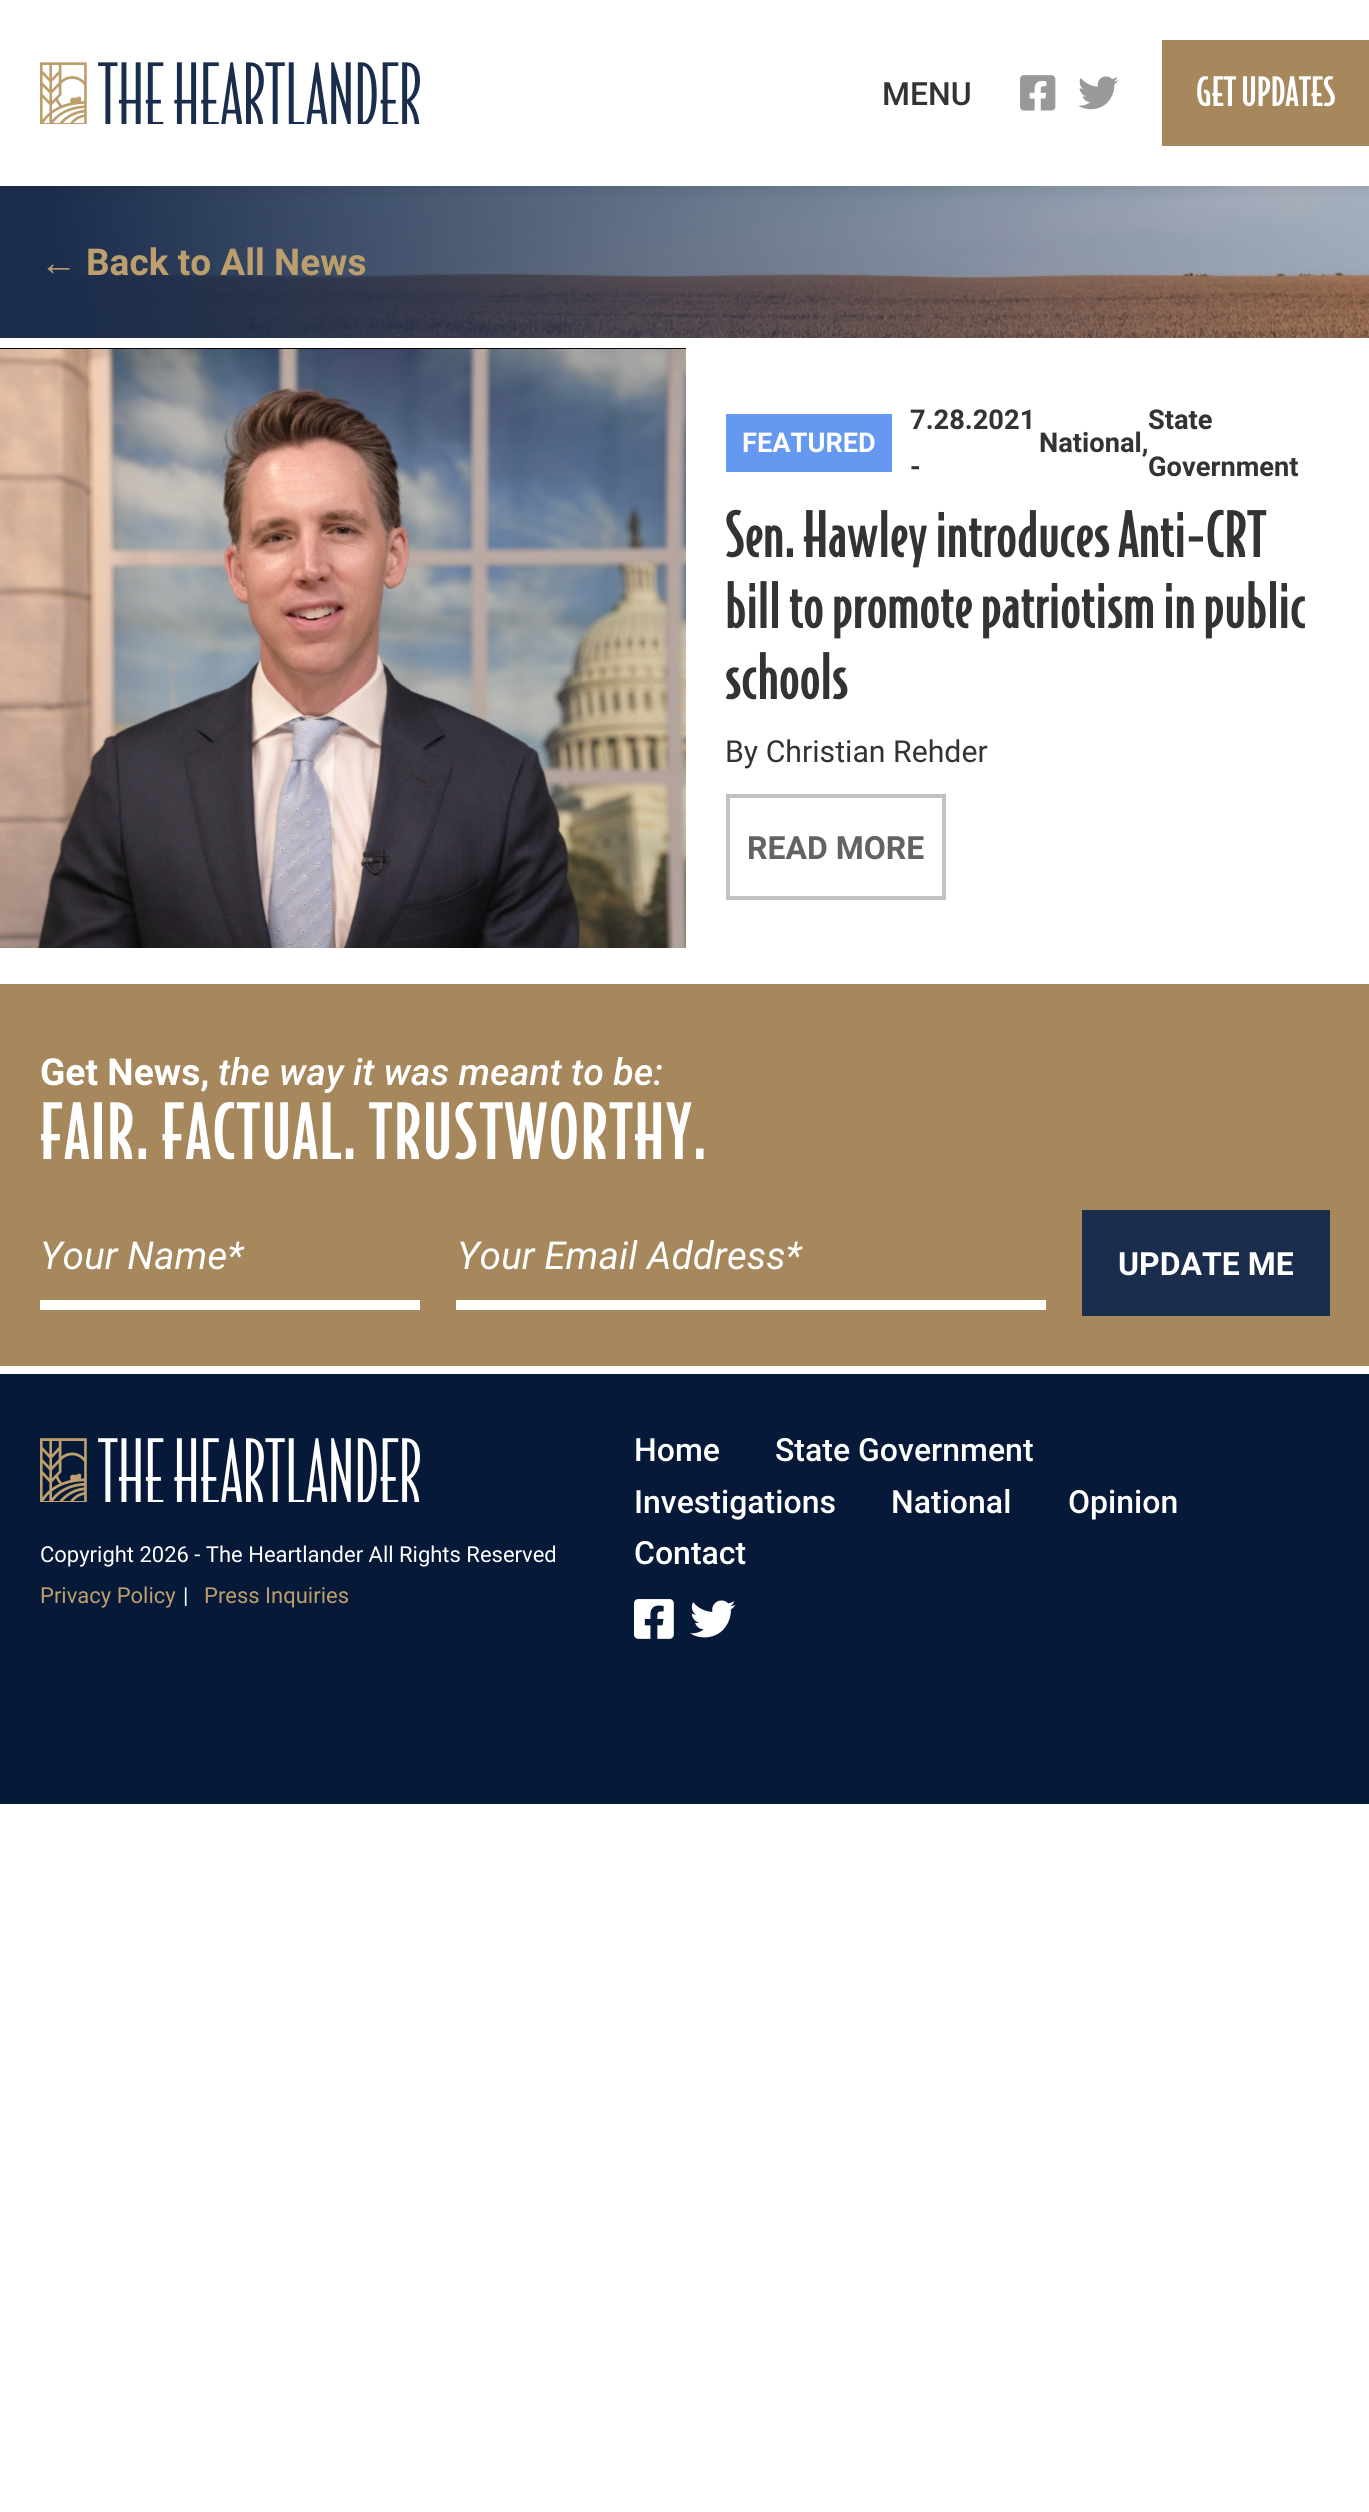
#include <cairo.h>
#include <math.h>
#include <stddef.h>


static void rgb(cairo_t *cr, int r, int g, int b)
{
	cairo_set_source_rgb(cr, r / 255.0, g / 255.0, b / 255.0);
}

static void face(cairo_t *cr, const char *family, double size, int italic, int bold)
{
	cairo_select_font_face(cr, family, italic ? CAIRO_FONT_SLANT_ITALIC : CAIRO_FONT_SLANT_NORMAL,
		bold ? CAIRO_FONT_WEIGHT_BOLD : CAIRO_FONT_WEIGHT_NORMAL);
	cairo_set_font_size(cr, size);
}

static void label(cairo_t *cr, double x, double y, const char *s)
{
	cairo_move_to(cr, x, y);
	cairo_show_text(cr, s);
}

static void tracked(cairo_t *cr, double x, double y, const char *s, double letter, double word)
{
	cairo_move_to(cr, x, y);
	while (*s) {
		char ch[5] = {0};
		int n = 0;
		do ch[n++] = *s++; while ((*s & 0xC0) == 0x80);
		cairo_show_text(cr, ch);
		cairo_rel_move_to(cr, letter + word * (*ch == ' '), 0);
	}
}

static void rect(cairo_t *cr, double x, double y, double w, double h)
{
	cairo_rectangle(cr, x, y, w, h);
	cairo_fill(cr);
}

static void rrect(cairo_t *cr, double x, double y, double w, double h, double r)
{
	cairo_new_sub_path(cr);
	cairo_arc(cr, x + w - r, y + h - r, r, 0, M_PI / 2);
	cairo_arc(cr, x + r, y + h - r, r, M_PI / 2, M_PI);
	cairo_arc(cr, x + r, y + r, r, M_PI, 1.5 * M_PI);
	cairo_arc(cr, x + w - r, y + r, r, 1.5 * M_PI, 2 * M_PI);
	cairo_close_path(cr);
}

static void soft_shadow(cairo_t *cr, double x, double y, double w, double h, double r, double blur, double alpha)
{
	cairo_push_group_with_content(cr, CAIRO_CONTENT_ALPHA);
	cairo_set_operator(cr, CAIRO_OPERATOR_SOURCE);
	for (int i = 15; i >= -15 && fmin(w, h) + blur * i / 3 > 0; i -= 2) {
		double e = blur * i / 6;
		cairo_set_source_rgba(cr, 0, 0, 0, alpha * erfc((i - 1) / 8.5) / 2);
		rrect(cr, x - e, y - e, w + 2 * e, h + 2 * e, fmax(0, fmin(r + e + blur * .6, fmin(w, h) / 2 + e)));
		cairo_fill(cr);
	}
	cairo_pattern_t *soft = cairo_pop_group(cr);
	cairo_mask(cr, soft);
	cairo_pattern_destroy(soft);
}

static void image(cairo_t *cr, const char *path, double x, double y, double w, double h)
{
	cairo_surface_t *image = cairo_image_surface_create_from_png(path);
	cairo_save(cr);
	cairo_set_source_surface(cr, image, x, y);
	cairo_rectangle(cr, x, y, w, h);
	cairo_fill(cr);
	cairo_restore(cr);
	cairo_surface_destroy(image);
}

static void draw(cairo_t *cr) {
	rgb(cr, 255, 255, 255);
	cairo_paint(cr);
	image(cr, "image3.png", 0, 186, 1369, 152);
	cairo_save(cr);
	cairo_rectangle(cr, 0, 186, 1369, 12);
	cairo_clip(cr);
	rgb(cr, 0, 0, 0);
	soft_shadow(cr, 0, -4, 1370, 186, 0, 14, 0.15);
	cairo_restore(cr);
	image(cr, "image0.png", 40, 62, 380, 62);
	face(cr, "Roboto Medium", 32, 0, 0);
	rgb(cr, 51, 51, 51);
	label(cr, 882, 105, "MENU");
	image(cr, "image1.png", 1020, 75, 36, 36);
	image(cr, "image2.png", 1078, 76, 41, 34);
	rgb(cr, 166, 136, 92);
	rect(cr, 1162, 40, 207, 106);
	face(cr, "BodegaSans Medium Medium", 38.5, 0, 0);
	rgb(cr, 255, 255, 255);
	label(cr, 1196, 106, "GET UPDATES");
	face(cr, "Liberation Sans", 37, 0, 1);
	rgb(cr, 188, 159, 109);
	label(cr, 40, 275, "←");
	face(cr, "Roboto", 37, 0, 1);
	label(cr, 86, 275, "Back to All News");
	image(cr, "image4.png", 0, 348, 686, 600);
	rgb(cr, 101, 152, 240);
	rect(cr, 726, 414, 166, 58);
	face(cr, "Roboto", 27.25, 0, 1);
	rgb(cr, 255, 255, 255);
	label(cr, 742, 452, "FEATURED");
	rgb(cr, 51, 51, 51);
	label(cr, 910, 429, "7.28.2021");
	label(cr, 1039, 452, "National,");
	label(cr, 1148, 429, "State");
	label(cr, 1148, 476, "Government");
	label(cr, 910, 476, "-");
	face(cr, "BodegaSans Medium Medium", 60.75, 0, 0);
	label(cr, 725, 557, "Sen. Hawley introduces Anti-CRT");
	label(cr, 725, 628, "bill to promote patriotism in public");
	label(cr, 725, 699, "schools");
	face(cr, "Roboto", 30.25, 0, 0);
	label(cr, 725, 762, "By Christian Rehder");
	cairo_rectangle(cr, 728, 796, 216, 102);
	rgb(cr, 193, 193, 193);
	cairo_set_line_width(cr, 4);
	cairo_stroke(cr);
	face(cr, "Roboto", 32, 0, 1);
	rgb(cr, 99, 99, 99);
	label(cr, 747, 859, "READ MORE");
	rgb(cr, 166, 136, 92);
	rect(cr, 0, 984, 1369, 382);
	face(cr, "Roboto", 37.25, 0, 1);
	rgb(cr, 255, 255, 255);
	label(cr, 40, 1085, "Get News,");
	face(cr, "Roboto Medium", 37.25, 1, 0);
	label(cr, 218, 1085, "the way it was meant to be:");
	face(cr, "BodegaSans Medium Medium", 73.5, 0, 0);
	tracked(cr, 40, 1159, "FAIR. FACTUAL. TRUSTWORTHY.", 1.5, 0);
	face(cr, "Roboto", 38.5, 1, 0);
	label(cr, 40, 1269, "Your Name*");
	rect(cr, 40, 1300, 380, 10);
	label(cr, 457, 1269, "Your Email Address*");
	rect(cr, 456, 1300, 590, 10);
	rgb(cr, 27, 45, 76);
	rect(cr, 1082, 1210, 248, 106);
	face(cr, "Roboto", 32, 0, 1);
	rgb(cr, 255, 255, 255);
	label(cr, 1118, 1275, "UPDATE ME");
	rgb(cr, 7, 25, 56);
	rect(cr, 0, 1374, 1369, 430);
	face(cr, "Roboto Medium", 32, 0, 0);
	rgb(cr, 255, 255, 255);
	label(cr, 634, 1461, "Home");
	label(cr, 775, 1461, "State Government");
	label(cr, 634, 1513, "Investigations");
	label(cr, 891, 1513, "National");
	label(cr, 1068, 1513, "Opinion");
	label(cr, 634, 1564, "Contact");
	image(cr, "image5.png", 634, 1599, 40, 40);
	image(cr, "image6.png", 690, 1600, 46, 38);
	image(cr, "image7.png", 40, 1438, 380, 64);
	face(cr, "Roboto", 22, 0, 0);
	label(cr, 40, 1562, "Copyright 2026 - The Heartlander All Rights Reserved");
	rgb(cr, 188, 159, 109);
	label(cr, 40, 1603, "Privacy Policy");
	rgb(cr, 255, 255, 255);
	label(cr, 183, 1603, "|");
	rgb(cr, 188, 159, 109);
	label(cr, 204, 1603, "Press Inquiries");
}

int main(void) {
	cairo_surface_t *surface = cairo_image_surface_create(CAIRO_FORMAT_RGB24, 1369, 2512);
	cairo_t *cr = cairo_create(surface);
	cairo_font_options_t *options = cairo_font_options_create();
	cairo_font_options_set_hint_metrics(options, CAIRO_HINT_METRICS_OFF);
	cairo_font_options_set_hint_style(options, CAIRO_HINT_STYLE_NONE);
	cairo_set_font_options(cr, options);
	cairo_set_miter_limit(cr, 4);
	draw(cr);
	cairo_surface_write_to_png(surface, "render.png");
	cairo_font_options_destroy(options);
	cairo_destroy(cr);
	cairo_surface_destroy(surface);
	return 0;
}
